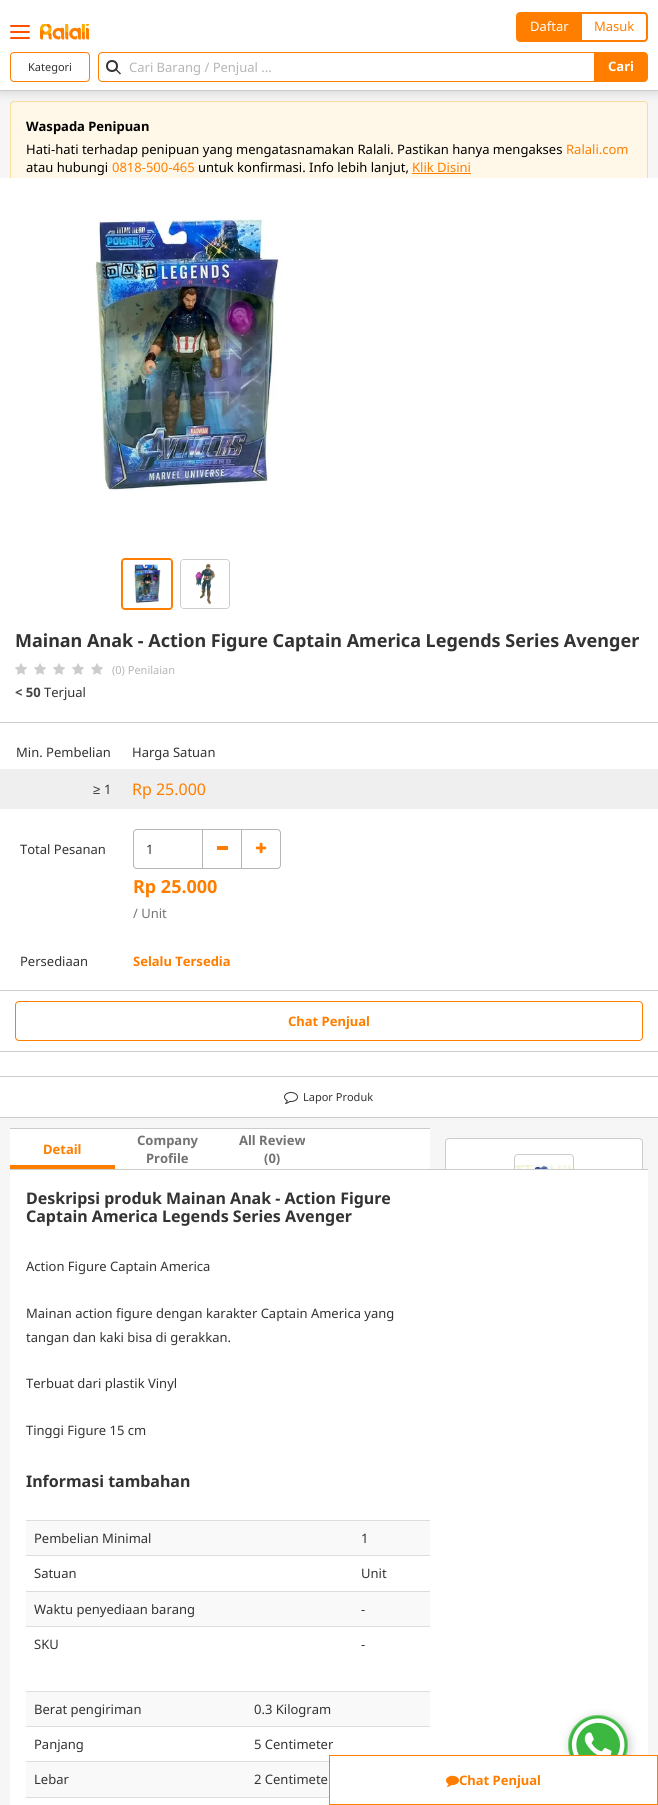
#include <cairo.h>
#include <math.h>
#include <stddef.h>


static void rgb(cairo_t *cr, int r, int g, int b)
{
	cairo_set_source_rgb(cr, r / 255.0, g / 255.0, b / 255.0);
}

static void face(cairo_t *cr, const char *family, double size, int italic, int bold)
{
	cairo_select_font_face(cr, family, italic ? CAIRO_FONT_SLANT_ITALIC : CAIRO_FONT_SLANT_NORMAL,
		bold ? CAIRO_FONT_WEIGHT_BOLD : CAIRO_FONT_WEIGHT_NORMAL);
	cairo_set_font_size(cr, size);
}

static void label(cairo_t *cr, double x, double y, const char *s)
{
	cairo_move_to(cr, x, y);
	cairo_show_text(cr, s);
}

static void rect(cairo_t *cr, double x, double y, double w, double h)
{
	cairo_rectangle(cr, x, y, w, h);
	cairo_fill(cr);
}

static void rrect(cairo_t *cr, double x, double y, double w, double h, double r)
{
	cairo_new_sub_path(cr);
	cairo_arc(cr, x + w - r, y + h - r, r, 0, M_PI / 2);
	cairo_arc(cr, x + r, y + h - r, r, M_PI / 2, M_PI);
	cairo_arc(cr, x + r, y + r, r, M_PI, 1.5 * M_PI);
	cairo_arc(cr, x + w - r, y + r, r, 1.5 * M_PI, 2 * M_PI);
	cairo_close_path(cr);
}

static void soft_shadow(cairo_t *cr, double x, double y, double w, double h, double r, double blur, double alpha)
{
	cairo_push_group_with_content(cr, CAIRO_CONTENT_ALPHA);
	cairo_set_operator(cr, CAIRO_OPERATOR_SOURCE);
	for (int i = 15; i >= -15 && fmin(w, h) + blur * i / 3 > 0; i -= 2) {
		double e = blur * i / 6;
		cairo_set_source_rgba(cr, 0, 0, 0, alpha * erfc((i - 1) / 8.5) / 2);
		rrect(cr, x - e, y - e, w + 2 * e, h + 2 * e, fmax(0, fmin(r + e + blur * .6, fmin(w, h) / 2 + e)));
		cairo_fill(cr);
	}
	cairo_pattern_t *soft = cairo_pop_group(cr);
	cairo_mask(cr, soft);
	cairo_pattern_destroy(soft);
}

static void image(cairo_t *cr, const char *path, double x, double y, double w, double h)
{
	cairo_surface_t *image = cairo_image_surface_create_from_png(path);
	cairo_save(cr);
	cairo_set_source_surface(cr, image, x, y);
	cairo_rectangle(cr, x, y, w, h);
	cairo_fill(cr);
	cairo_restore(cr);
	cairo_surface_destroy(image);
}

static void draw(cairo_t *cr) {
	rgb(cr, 246, 246, 246);
	cairo_paint(cr);
	rgb(cr, 255, 248, 232);
	rrect(cr, 10.5, 101.5, 637, 91, 3.5);
	cairo_fill_preserve(cr);
	rgb(cr, 248, 221, 155);
	cairo_set_line_width(cr, 1);
	cairo_stroke(cr);
	rgb(cr, 204, 204, 204);
	soft_shadow(cr, 0, 0, 658, 91, 0, 6, 1);
	rgb(cr, 255, 255, 255);
	rect(cr, 0, 0, 658, 90);
	rgb(cr, 204, 204, 204);
	rect(cr, 0, 90, 658, 1);
	image(cr, "image0.png", 10, 25, 20, 14);
	image(cr, "image1.png", 40, 24, 49, 16);
	rgb(cr, 255, 126, 0);
	cairo_new_path(cr);
	cairo_move_to(cr, 520, 13);
	cairo_line_to(cr, 582, 13);
	cairo_line_to(cr, 582, 41);
	cairo_line_to(cr, 520, 41);
	cairo_curve_to(cr, 518.5, 41, 517, 39.5, 517, 38);
	cairo_line_to(cr, 517, 16);
	cairo_curve_to(cr, 517, 14.5, 518.5, 13, 520, 13);
	cairo_close_path(cr);
	cairo_fill_preserve(cr);
	cairo_set_line_width(cr, 2);
	cairo_stroke(cr);
	face(cr, "Noto Sans", 13, 0, 0);
	rgb(cr, 255, 255, 255);
	label(cr, 530, 31, "Daftar");
	cairo_new_path(cr);
	cairo_move_to(cr, 581, 13);
	cairo_line_to(cr, 644, 13);
	cairo_curve_to(cr, 645.5, 13, 647, 14.5, 647, 16);
	cairo_line_to(cr, 647, 38);
	cairo_curve_to(cr, 647, 39.5, 645.5, 41, 644, 41);
	cairo_line_to(cr, 581, 41);
	cairo_close_path(cr);
	cairo_fill_preserve(cr);
	rgb(cr, 255, 126, 0);
	cairo_stroke(cr);
	label(cr, 594, 31, "Masuk");
	rrect(cr, 10.5, 52.5, 79, 29, 3.5);
	cairo_set_line_width(cr, 1);
	cairo_stroke(cr);
	face(cr, "Noto Sans", 11, 0, 0);
	rgb(cr, 51, 51, 51);
	label(cr, 28, 71, "Kategori");
	rgb(cr, 255, 126, 0);
	cairo_set_fill_rule(cr, CAIRO_FILL_RULE_EVEN_ODD);
	cairo_new_path(cr);
	cairo_move_to(cr, 102, 52);
	cairo_line_to(cr, 129, 52);
	cairo_line_to(cr, 129, 82);
	cairo_line_to(cr, 102, 82);
	cairo_curve_to(cr, 100, 82, 98, 80, 98, 78);
	cairo_line_to(cr, 98, 56);
	cairo_curve_to(cr, 98, 54, 100, 52, 102, 52);
	cairo_close_path(cr);
	cairo_move_to(cr, 102, 53);
	cairo_line_to(cr, 129, 53);
	cairo_line_to(cr, 129, 81);
	cairo_line_to(cr, 102, 81);
	cairo_curve_to(cr, 100.5, 81, 99, 79.5, 99, 78);
	cairo_line_to(cr, 99, 56);
	cairo_curve_to(cr, 99, 54.5, 100.5, 53, 102, 53);
	cairo_close_path(cr);
	cairo_fill(cr);
	cairo_arc(cr, 112, 66, 5, 0, 2 * M_PI);
	rgb(cr, 51, 51, 51);
	cairo_set_line_width(cr, 2);
	cairo_stroke(cr);
	cairo_set_fill_rule(cr, CAIRO_FILL_RULE_WINDING);
	cairo_new_path(cr);
	cairo_move_to(cr, 116.5, 69);
	cairo_line_to(cr, 121, 73.5);
	cairo_line_to(cr, 120, 74.5);
	cairo_line_to(cr, 115.5, 70);
	cairo_close_path(cr);
	cairo_fill(cr);
	rgb(cr, 255, 126, 0);
	cairo_new_path(cr);
	cairo_move_to(cr, 595, 53);
	cairo_line_to(cr, 644, 53);
	cairo_curve_to(cr, 645.5, 53, 647, 54.5, 647, 56);
	cairo_line_to(cr, 647, 78);
	cairo_curve_to(cr, 647, 79.5, 645.5, 81, 644, 81);
	cairo_line_to(cr, 595, 81);
	cairo_close_path(cr);
	cairo_fill_preserve(cr);
	cairo_stroke(cr);
	rect(cr, 129, 52, 466, 1);
	rect(cr, 129, 81, 466, 1);
	face(cr, "Noto Sans", 13, 0, 0);
	rgb(cr, 182, 182, 182);
	label(cr, 129, 72, "Cari Barang / Penjual ...");
	face(cr, "Noto Sans", 13, 0, 1);
	rgb(cr, 255, 255, 255);
	label(cr, 608, 71, "Cari");
	rgb(cr, 0, 0, 0);
	label(cr, 26, 131, "Waspada Penipuan");
	face(cr, "Noto Sans", 13, 0, 0);
	label(cr, 26, 154, "Hati-hati terhadap penipuan yang mengatasnamakan Ralali. Pastikan hanya mengakses");
	rgb(cr, 255, 126, 0);
	label(cr, 566, 154, "Ralali.com");
	rgb(cr, 0, 0, 0);
	label(cr, 26, 172, "atau hubungi");
	rgb(cr, 255, 126, 0);
	label(cr, 112, 172, "0818-500-465");
	rgb(cr, 0, 0, 0);
	label(cr, 198, 172, "untuk konfirmasi. Info lebih lanjut,");
	rgb(cr, 255, 126, 0);
	label(cr, 412, 172, "Klik Disini");
	rect(cr, 412, 173, 59, 1);
	rgb(cr, 204, 204, 204);
	rect(cr, 0, 1117, 658, 1);
	rgb(cr, 255, 255, 255);
	rect(cr, 0, 178, 658, 939);
	rgb(cr, 204, 204, 204);
	rect(cr, 0, 722, 658, 1);
	image(cr, "image2.png", 94, 218, 188, 273);
	rrect(cr, 122, 559, 50, 50, 3);
	rgb(cr, 255, 126, 0);
	cairo_stroke(cr);
	image(cr, "image3.png", 123, 560, 48, 48);
	rrect(cr, 180.5, 559.5, 49, 49, 3.5);
	rgb(cr, 204, 204, 204);
	cairo_set_line_width(cr, 1);
	cairo_stroke(cr);
	image(cr, "image4.png", 181, 560, 48, 48);
	face(cr, "Noto Sans", 18, 0, 1);
	rgb(cr, 51, 51, 51);
	label(cr, 15, 647, "Mainan Anak - Action Figure Captain America Legends Series Avenger");
	image(cr, "image5.png", 15, 663, 12, 12);
	image(cr, "image5.png", 34, 663, 12, 12);
	image(cr, "image5.png", 53, 663, 12, 12);
	image(cr, "image5.png", 72, 663, 12, 12);
	image(cr, "image5.png", 91, 663, 12, 12);
	face(cr, "Noto Sans", 11, 0, 0);
	rgb(cr, 182, 182, 182);
	label(cr, 112, 674, "(0) Penilaian");
	face(cr, "Noto Sans", 13, 0, 1);
	rgb(cr, 68, 68, 68);
	label(cr, 15, 697, "< 50");
	face(cr, "Noto Sans", 13, 0, 0);
	rgb(cr, 51, 51, 51);
	label(cr, 44, 697, "Terjual");
	label(cr, 16, 757, "Min. Pembelian");
	label(cr, 132, 757, "Harga Satuan");
	rgb(cr, 239, 239, 239);
	rect(cr, 0, 769, 658, 40);
	face(cr, "Liberation Sans", 13, 0, 0);
	rgb(cr, 51, 51, 51);
	label(cr, 93, 794, "≥");
	face(cr, "Noto Sans", 13, 0, 0);
	label(cr, 104, 794, "1");
	face(cr, "Noto Sans", 16, 0, 0);
	rgb(cr, 255, 126, 0);
	label(cr, 132, 795, "Rp 25.000");
	face(cr, "Noto Sans", 13, 0, 0);
	rgb(cr, 51, 51, 51);
	label(cr, 20, 854, "Total Pesanan");
	cairo_new_path(cr);
	cairo_move_to(cr, 137, 829.5);
	cairo_line_to(cr, 202.5, 829.5);
	cairo_line_to(cr, 202.5, 868.5);
	cairo_line_to(cr, 137, 868.5);
	cairo_curve_to(cr, 135, 868.5, 133.5, 867, 133.5, 865);
	cairo_line_to(cr, 133.5, 833);
	cairo_curve_to(cr, 133.5, 831, 135, 829.5, 137, 829.5);
	cairo_close_path(cr);
	rgb(cr, 182, 182, 182);
	cairo_stroke(cr);
	rgb(cr, 51, 51, 51);
	label(cr, 146, 854, "1");
	cairo_rectangle(cr, 202.5, 829.5, 39, 39);
	rgb(cr, 182, 182, 182);
	cairo_stroke(cr);
	rgb(cr, 255, 126, 0);
	rect(cr, 217, 846, 11, 4);
	rgb(cr, 255, 255, 255);
	cairo_new_path(cr);
	cairo_move_to(cr, 241.5, 829.5);
	cairo_line_to(cr, 277, 829.5);
	cairo_curve_to(cr, 279, 829.5, 280.5, 831, 280.5, 833);
	cairo_line_to(cr, 280.5, 865);
	cairo_curve_to(cr, 280.5, 867, 279, 868.5, 277, 868.5);
	cairo_line_to(cr, 241.5, 868.5);
	cairo_close_path(cr);
	cairo_fill_preserve(cr);
	rgb(cr, 182, 182, 182);
	cairo_stroke(cr);
	image(cr, "image6.png", 256, 842, 11, 12);
	face(cr, "Noto Sans", 18, 0, 1);
	rgb(cr, 255, 126, 0);
	label(cr, 133, 893, "Rp 25.000");
	face(cr, "Noto Sans", 13, 0, 0);
	rgb(cr, 115, 115, 115);
	label(cr, 133, 918, "/ Unit");
	rgb(cr, 51, 51, 51);
	label(cr, 20, 966, "Persediaan");
	face(cr, "Noto Sans", 13, 0, 1);
	rgb(cr, 255, 126, 0);
	label(cr, 133, 966, "Selalu Tersedia");
	rgb(cr, 204, 204, 204);
	rect(cr, 0, 990, 658, 1);
	rect(cr, 0, 1051, 658, 1);
	rrect(cr, 15.5, 1001.5, 627, 39, 3.5);
	rgb(cr, 255, 126, 0);
	cairo_stroke(cr);
	label(cr, 288, 1026, "Chat Penjual");
	rgb(cr, 204, 204, 204);
	rect(cr, 0, 1076, 658, 1);
	image(cr, "image7.png", 284, 1092, 14, 12);
	face(cr, "Noto Sans", 11, 0, 0);
	rgb(cr, 51, 51, 51);
	label(cr, 303, 1101, "Lapor Produk");
	rgb(cr, 255, 255, 255);
	rect(cr, 10, 1129, 420, 40);
	rgb(cr, 204, 204, 204);
	rect(cr, 10, 1128, 420, 1);
	rgb(cr, 255, 126, 0);
	rect(cr, 10, 1165, 105, 4);
	face(cr, "Noto Sans", 13, 0, 1);
	label(cr, 43, 1154, "Detail");
	rgb(cr, 115, 115, 115);
	label(cr, 137, 1145, "Company");
	label(cr, 146, 1163, "Profile");
	label(cr, 239, 1145, "All Review");
	label(cr, 264, 1163, "(0)");
	rgb(cr, 255, 255, 255);
	rrect(cr, 445.5, 1138.5, 197, 270, 3.5);
	cairo_fill_preserve(cr);
	rgb(cr, 204, 204, 204);
	cairo_stroke(cr);
	rrect(cr, 514.5, 1154.5, 59, 59, 3.5);
	cairo_stroke(cr);
	rgb(cr, 255, 255, 255);
	rect(cr, 10, 1170, 638, 635);
	rgb(cr, 204, 204, 204);
	rect(cr, 10, 1169, 638, 1);
	face(cr, "Noto Sans", 16, 0, 1);
	rgb(cr, 51, 51, 51);
	label(cr, 26, 1204, "Deskripsi produk Mainan Anak - Action Figure");
	label(cr, 26, 1222, "Captain America Legends Series Avenger");
	face(cr, "Noto Sans", 13, 0, 0);
	label(cr, 26, 1271, "Action Figure Captain America");
	label(cr, 26, 1318, "Mainan action figure dengan karakter Captain America yang");
	label(cr, 26, 1342, "tangan dan kaki bisa di gerakkan.");
	label(cr, 26, 1388, "Terbuat dari plastik Vinyl");
	label(cr, 26, 1435, "Tinggi Figure 15 cm");
	face(cr, "Noto Sans", 16, 0, 1);
	label(cr, 26, 1487, "Informasi tambahan");
	rgb(cr, 249, 249, 249);
	rect(cr, 26, 1521, 404, 34);
	face(cr, "Noto Sans", 13, 0, 0);
	rgb(cr, 51, 51, 51);
	label(cr, 34, 1543, "Pembelian Minimal");
	rgb(cr, 221, 221, 221);
	rect(cr, 26, 1520, 404, 1);
	rgb(cr, 51, 51, 51);
	label(cr, 361, 1543, "1");
	label(cr, 34, 1578, "Satuan");
	rgb(cr, 221, 221, 221);
	rect(cr, 26, 1555, 404, 1);
	rgb(cr, 51, 51, 51);
	label(cr, 361, 1578, "Unit");
	rgb(cr, 249, 249, 249);
	rect(cr, 26, 1592, 404, 34);
	rgb(cr, 51, 51, 51);
	label(cr, 34, 1614, "Waktu penyediaan barang");
	rgb(cr, 221, 221, 221);
	rect(cr, 26, 1591, 404, 1);
	rgb(cr, 51, 51, 51);
	label(cr, 361, 1614, "-");
	label(cr, 34, 1649, "SKU");
	rgb(cr, 221, 221, 221);
	rect(cr, 26, 1626, 404, 1);
	rgb(cr, 51, 51, 51);
	label(cr, 361, 1649, "-");
	rgb(cr, 249, 249, 249);
	rect(cr, 26, 1692, 404, 34);
	rgb(cr, 51, 51, 51);
	label(cr, 34, 1714, "Berat pengiriman");
	rgb(cr, 221, 221, 221);
	rect(cr, 26, 1691, 404, 1);
	rgb(cr, 51, 51, 51);
	label(cr, 254, 1714, "0.3 Kilogram");
	label(cr, 34, 1749, "Panjang");
	rgb(cr, 221, 221, 221);
	rect(cr, 26, 1726, 404, 1);
	rgb(cr, 51, 51, 51);
	label(cr, 254, 1749, "5 Centimeter");
	rgb(cr, 249, 249, 249);
	rect(cr, 26, 1762, 303, 35);
	rgb(cr, 51, 51, 51);
	label(cr, 34, 1784, "Lebar");
	rgb(cr, 221, 221, 221);
	rect(cr, 26, 1761, 303, 1);
	rgb(cr, 51, 51, 51);
	label(cr, 254, 1784, "2 Centimete");
	rgb(cr, 221, 221, 221);
	rect(cr, 26, 1797, 303, 1);
	image(cr, "image8.png", 515, 1165, 58, 4);
	rgb(cr, 0, 0, 0);
	soft_shadow(cr, 570, 1717, 60, 60, 30, 5, 0.2);
	rgb(cr, 60, 184, 65);
	cairo_arc(cr, 598, 1745, 30, 0, 2 * M_PI);
	cairo_fill(cr);
	cairo_arc(cr, 598, 1745, 29.5, 0, 2 * M_PI);
	cairo_set_source_rgba(cr, 1, 1, 1, 0.3);
	cairo_stroke(cr);
	rgb(cr, 255, 255, 255);
	rect(cr, 563, 1756, 94, 48);
	cairo_rectangle(cr, 329.5, 1755.5, 328, 49);
	rgb(cr, 255, 126, 0);
	cairo_stroke(cr);
	image(cr, "image9.png", 446, 1775, 13, 12);
	face(cr, "Noto Sans", 13, 0, 1);
	label(cr, 459, 1785, "Chat Penjual");
	image(cr, "image10.png", 571, 1718, 54, 37);
}

int main(void) {
	cairo_surface_t *surface = cairo_image_surface_create(CAIRO_FORMAT_RGB24, 658, 1805);
	cairo_t *cr = cairo_create(surface);
	cairo_font_options_t *options = cairo_font_options_create();
	cairo_font_options_set_hint_metrics(options, CAIRO_HINT_METRICS_OFF);
	cairo_font_options_set_hint_style(options, CAIRO_HINT_STYLE_NONE);
	cairo_set_font_options(cr, options);
	cairo_set_miter_limit(cr, 4);
	draw(cr);
	cairo_surface_write_to_png(surface, "render.png");
	cairo_font_options_destroy(options);
	cairo_destroy(cr);
	cairo_surface_destroy(surface);
	return 0;
}
